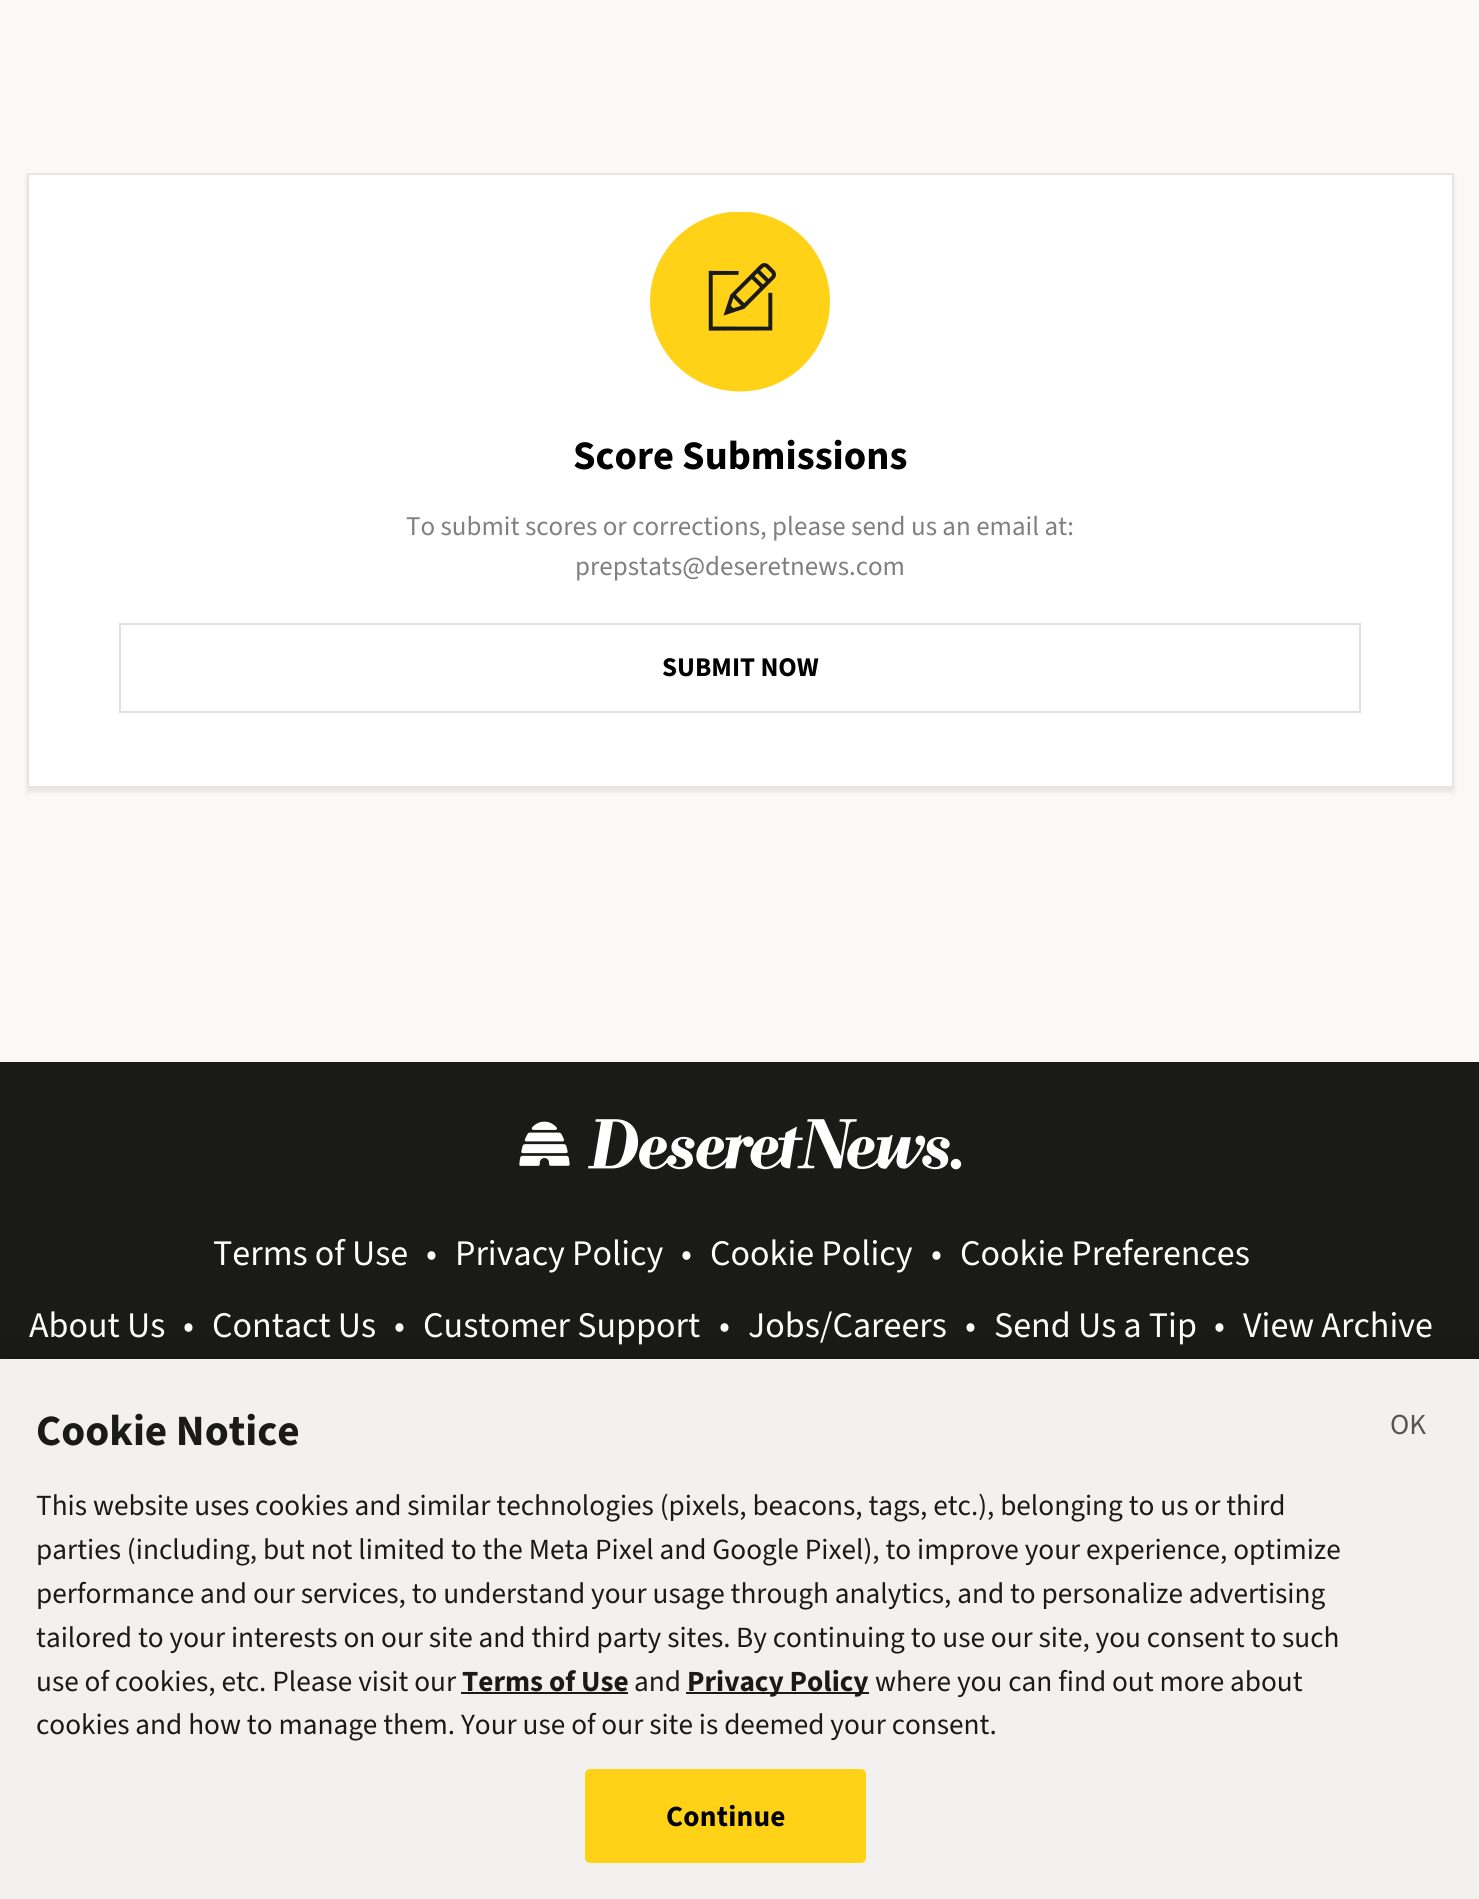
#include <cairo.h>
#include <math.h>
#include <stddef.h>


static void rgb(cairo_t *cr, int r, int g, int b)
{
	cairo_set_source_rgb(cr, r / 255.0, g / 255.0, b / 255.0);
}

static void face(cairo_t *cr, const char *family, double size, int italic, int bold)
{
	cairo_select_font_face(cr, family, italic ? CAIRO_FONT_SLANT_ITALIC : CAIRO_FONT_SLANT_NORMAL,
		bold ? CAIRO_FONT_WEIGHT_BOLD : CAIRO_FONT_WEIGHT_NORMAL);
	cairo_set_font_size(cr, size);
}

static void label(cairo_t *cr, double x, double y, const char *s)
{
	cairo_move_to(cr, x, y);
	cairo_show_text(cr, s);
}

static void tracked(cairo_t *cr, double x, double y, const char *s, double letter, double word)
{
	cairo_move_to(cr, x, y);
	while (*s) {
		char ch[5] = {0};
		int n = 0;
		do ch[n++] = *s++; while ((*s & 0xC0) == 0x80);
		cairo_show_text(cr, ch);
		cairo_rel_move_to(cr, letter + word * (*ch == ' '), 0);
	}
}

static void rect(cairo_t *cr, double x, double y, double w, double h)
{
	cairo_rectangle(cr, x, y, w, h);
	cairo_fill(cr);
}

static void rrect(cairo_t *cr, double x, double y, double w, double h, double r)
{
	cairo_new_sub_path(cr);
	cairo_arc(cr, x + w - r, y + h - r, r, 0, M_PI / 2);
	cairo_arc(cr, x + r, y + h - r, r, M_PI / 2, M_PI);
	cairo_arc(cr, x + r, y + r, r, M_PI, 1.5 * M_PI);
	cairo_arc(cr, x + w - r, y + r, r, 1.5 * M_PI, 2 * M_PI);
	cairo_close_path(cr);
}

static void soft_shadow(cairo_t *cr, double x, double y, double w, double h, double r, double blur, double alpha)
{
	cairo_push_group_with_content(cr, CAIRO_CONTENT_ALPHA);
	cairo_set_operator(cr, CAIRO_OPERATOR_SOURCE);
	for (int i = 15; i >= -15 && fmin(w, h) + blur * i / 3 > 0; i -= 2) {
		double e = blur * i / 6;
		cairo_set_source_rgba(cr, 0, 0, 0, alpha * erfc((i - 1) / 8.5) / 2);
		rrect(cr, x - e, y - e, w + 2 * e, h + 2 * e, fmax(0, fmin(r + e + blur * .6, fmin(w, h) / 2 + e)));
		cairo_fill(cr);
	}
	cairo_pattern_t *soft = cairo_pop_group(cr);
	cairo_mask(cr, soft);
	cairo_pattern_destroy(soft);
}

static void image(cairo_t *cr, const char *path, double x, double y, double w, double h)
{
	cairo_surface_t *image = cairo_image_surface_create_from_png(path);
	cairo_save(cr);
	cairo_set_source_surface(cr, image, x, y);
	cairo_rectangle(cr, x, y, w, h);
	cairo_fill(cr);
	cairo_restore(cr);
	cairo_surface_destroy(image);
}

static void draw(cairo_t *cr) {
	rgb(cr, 250, 249, 247);
	cairo_paint(cr);
	rgb(cr, 230, 229, 227);
	soft_shadow(cr, 27, 178, 1427, 614, 0, 2, 1);
	rgb(cr, 255, 255, 255);
	cairo_rectangle(cr, 28, 174, 1425, 613);
	cairo_fill_preserve(cr);
	rgb(cr, 230, 229, 227);
	cairo_stroke(cr);
	image(cr, "image0.png", 650, 212, 180, 180);
	face(cr, "Source Sans 3", 40.5, 0, 1);
	rgb(cr, 0, 0, 0);
	label(cr, 573, 469, "Score Submissions");
	face(cr, "Source Sans 3", 27, 0, 0);
	rgb(cr, 128, 128, 128);
	label(cr, 406, 535, "To submit scores or corrections, please send us an email at:");
	label(cr, 575, 575, "prepstats@deseretnews.com");
	cairo_rectangle(cr, 120, 624, 1240, 88);
	rgb(cr, 222, 224, 227);
	cairo_stroke(cr);
	face(cr, "Source Sans 3", 27, 0, 1);
	rgb(cr, 0, 0, 0);
	label(cr, 662, 676, "SUBMIT NOW");
	rgb(cr, 26, 26, 25);
	rect(cr, 0, 1062, 1479, 297);
	image(cr, "image1.png", 519, 1119, 443, 51);
	face(cr, "Source Sans 3", 36, 0, 0);
	rgb(cr, 255, 255, 255);
	label(cr, 213, 1265, "Terms of Use");
	label(cr, 426, 1265, "•");
	label(cr, 455, 1265, "Privacy Policy");
	label(cr, 681, 1265, "•");
	label(cr, 710, 1265, "Cookie Policy");
	label(cr, 931, 1265, "•");
	label(cr, 960, 1265, "Cookie Preferences");
	label(cr, 29, 1337, "About Us");
	label(cr, 183, 1337, "•");
	label(cr, 212, 1337, "Contact Us");
	label(cr, 394, 1337, "•");
	label(cr, 423, 1337, "Customer Support");
	label(cr, 719, 1337, "•");
	label(cr, 748, 1337, "Jobs/Careers");
	label(cr, 965, 1337, "•");
	label(cr, 994, 1337, "Send Us a Tip");
	label(cr, 1214, 1337, "•");
	label(cr, 1243, 1337, "View Archive");
	rgb(cr, 0, 0, 0);
	soft_shadow(cr, 0, 1359, 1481, 540, 0, 20, 0.2);
	rgb(cr, 243, 241, 240);
	rect(cr, 0, 1359, 1479, 540);
	face(cr, "Source Sans 3", 43.25, 0, 1);
	rgb(cr, 26, 26, 25);
	label(cr, 36, 1445, "Cookie Notice");
	face(cr, "Source Sans 3", 29.25, 0, 0);
	label(cr, 36, 1515, "This website uses cookies and similar technologies (pixels, beacons, tags, etc.), belonging to us or third");
	label(cr, 36, 1559, "parties (including, but not limited to the Meta Pixel and Google Pixel), to improve your experience, optimize");
	label(cr, 36, 1603, "performance and our services, to understand your usage through analytics, and to personalize advertising");
	label(cr, 36, 1647, "tailored to your interests on our site and third party sites.");
	label(cr, 736, 1647, "By continuing to use our site, you consent to such");
	label(cr, 36, 1691, "use of cookies, etc. Please visit our");
	face(cr, "Source Sans 3", 29.25, 0, 1);
	label(cr, 462, 1691, "Terms of Use");
	rect(cr, 461, 1692, 167, 2);
	face(cr, "Source Sans 3", 29.25, 0, 0);
	label(cr, 634, 1691, "and");
	rect(cr, 686, 1692, 183, 2);
	face(cr, "Source Sans 3", 29.25, 0, 1);
	label(cr, 687, 1691, "Privacy Policy");
	face(cr, "Source Sans 3", 29.25, 0, 0);
	label(cr, 875, 1691, "where you can find out more about");
	label(cr, 36, 1734, "cookies and how to manage them. Your use of our site is deemed your consent.");
	rgb(cr, 255, 210, 23);
	rrect(cr, 586, 1770, 279, 92, 4);
	cairo_fill_preserve(cr);
	cairo_stroke(cr);
	face(cr, "Source Sans 3", 29.25, 0, 1);
	rgb(cr, 0, 0, 0);
	tracked(cr, 666, 1826, "Continue", 0.25, 0);
	face(cr, "Source Sans 3", 29, 0, 0);
	rgb(cr, 85, 85, 85);
	label(cr, 1390, 1434, "OK");
}

int main(void) {
	cairo_surface_t *surface = cairo_image_surface_create(CAIRO_FORMAT_RGB24, 1479, 1899);
	cairo_t *cr = cairo_create(surface);
	cairo_font_options_t *options = cairo_font_options_create();
	cairo_font_options_set_hint_metrics(options, CAIRO_HINT_METRICS_OFF);
	cairo_font_options_set_hint_style(options, CAIRO_HINT_STYLE_NONE);
	cairo_set_font_options(cr, options);
	cairo_set_miter_limit(cr, 4);
	draw(cr);
	cairo_surface_write_to_png(surface, "render.png");
	cairo_font_options_destroy(options);
	cairo_destroy(cr);
	cairo_surface_destroy(surface);
	return 0;
}
